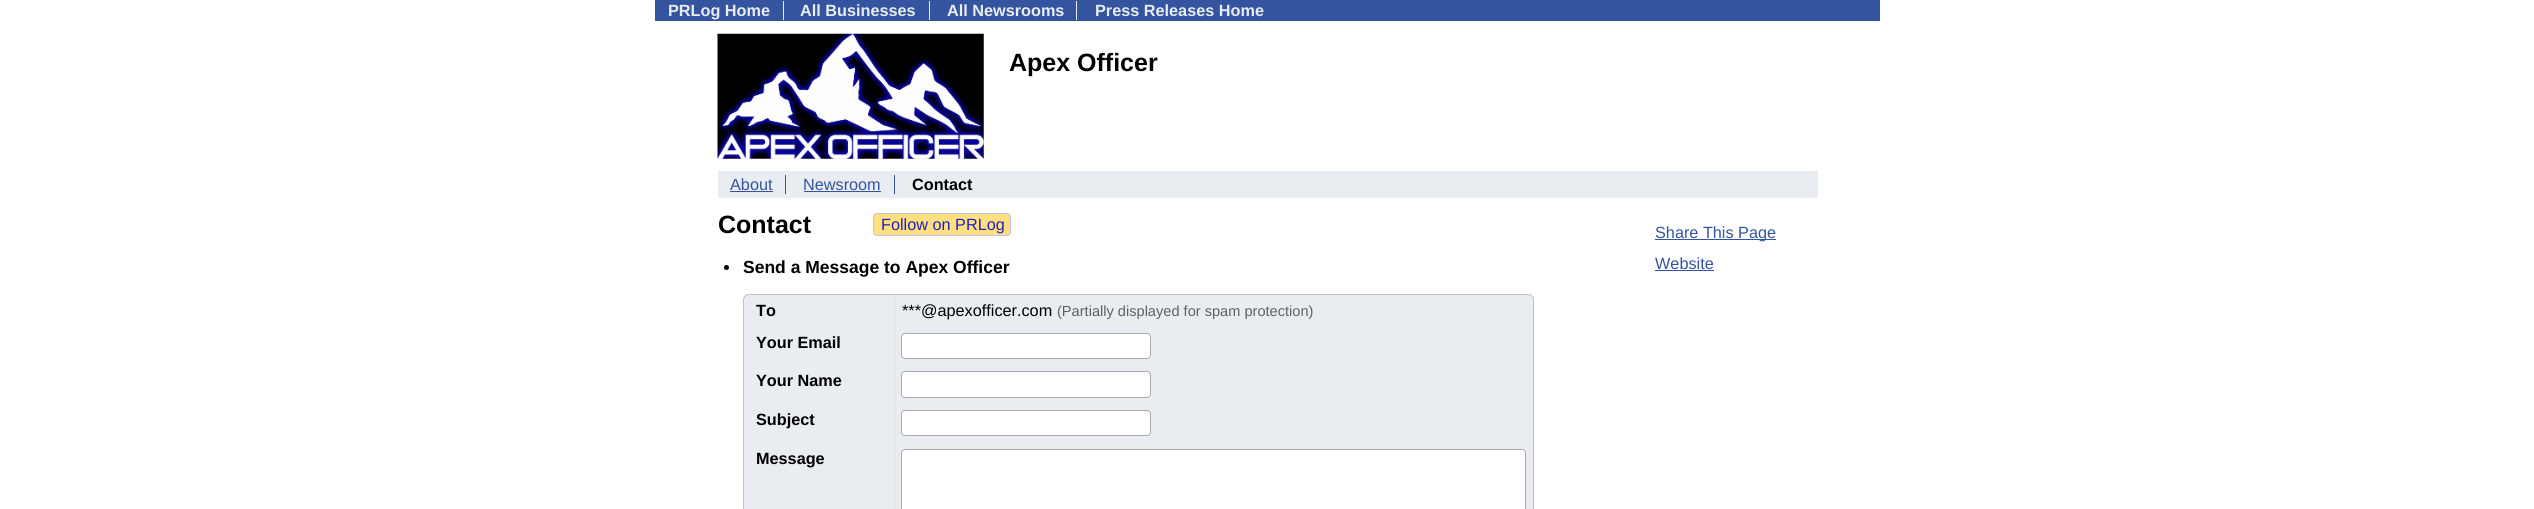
#include <cairo.h>
#include <math.h>
#include <stddef.h>


static void rgb(cairo_t *cr, int r, int g, int b)
{
	cairo_set_source_rgb(cr, r / 255.0, g / 255.0, b / 255.0);
}

static void face(cairo_t *cr, const char *family, double size, int italic, int bold)
{
	cairo_select_font_face(cr, family, italic ? CAIRO_FONT_SLANT_ITALIC : CAIRO_FONT_SLANT_NORMAL,
		bold ? CAIRO_FONT_WEIGHT_BOLD : CAIRO_FONT_WEIGHT_NORMAL);
	cairo_set_font_size(cr, size);
}

static void label(cairo_t *cr, double x, double y, const char *s)
{
	cairo_move_to(cr, x, y);
	cairo_show_text(cr, s);
}

static void rect(cairo_t *cr, double x, double y, double w, double h)
{
	cairo_rectangle(cr, x, y, w, h);
	cairo_fill(cr);
}

static void rrect(cairo_t *cr, double x, double y, double w, double h, double r)
{
	cairo_new_sub_path(cr);
	cairo_arc(cr, x + w - r, y + h - r, r, 0, M_PI / 2);
	cairo_arc(cr, x + r, y + h - r, r, M_PI / 2, M_PI);
	cairo_arc(cr, x + r, y + r, r, M_PI, 1.5 * M_PI);
	cairo_arc(cr, x + w - r, y + r, r, 1.5 * M_PI, 2 * M_PI);
	cairo_close_path(cr);
}

static void image(cairo_t *cr, const char *path, double x, double y, double w, double h)
{
	cairo_surface_t *image = cairo_image_surface_create_from_png(path);
	cairo_save(cr);
	cairo_set_source_surface(cr, image, x, y);
	cairo_rectangle(cr, x, y, w, h);
	cairo_fill(cr);
	cairo_restore(cr);
	cairo_surface_destroy(image);
}

static void draw(cairo_t *cr) {
	rgb(cr, 255, 255, 255);
	cairo_paint(cr);
	rgb(cr, 52, 84, 160);
	rect(cr, 655, 0, 1225, 21);
	rgb(cr, 233, 237, 242);
	rect(cr, 783, 1, 1, 19);
	face(cr, "Liberation Sans", 16.25, 0, 1);
	label(cr, 668, 16, "PRLog Home");
	rect(cr, 929, 1, 1, 19);
	label(cr, 800, 16, "All Businesses");
	rect(cr, 1076, 1, 1, 19);
	label(cr, 947, 16, "All Newsrooms");
	label(cr, 1095, 16, "Press Releases Home");
	image(cr, "image0.png", 717, 33, 267, 126);
	face(cr, "Liberation Sans", 25, 0, 1);
	rgb(cr, 0, 0, 0);
	label(cr, 1009, 71, "Apex Officer");
	rgb(cr, 233, 237, 242);
	rect(cr, 718, 171, 1100, 27);
	rgb(cr, 52, 84, 160);
	rect(cr, 785, 175, 1, 19);
	face(cr, "Liberation Sans", 16.25, 0, 0);
	label(cr, 730, 190, "About");
	rect(cr, 730, 191, 43, 1);
	rect(cr, 894, 175, 1, 19);
	label(cr, 803, 190, "Newsroom");
	rect(cr, 804, 191, 77, 1);
	face(cr, "Liberation Sans", 16.25, 0, 1);
	rgb(cr, 0, 0, 0);
	label(cr, 912, 190, "Contact");
	face(cr, "Liberation Sans", 25, 0, 1);
	label(cr, 718, 233, "Contact");
	rgb(cr, 255, 224, 128);
	rrect(cr, 873.5, 213.5, 137, 22, 3.5);
	cairo_fill_preserve(cr);
	rgb(cr, 192, 192, 224);
	cairo_set_line_width(cr, 1);
	cairo_stroke(cr);
	face(cr, "Liberation Sans", 16.25, 0, 0);
	rgb(cr, 32, 32, 192);
	label(cr, 881, 230, "Follow on PRLog");
	rgb(cr, 0, 0, 0);
	cairo_new_path(cr);
	cairo_arc(cr, 726.5, 267.5, 2.5, 0, 2 * M_PI);
	cairo_fill(cr);
	face(cr, "Liberation Sans", 17.5, 0, 1);
	label(cr, 743, 273, "Send a Message to Apex Officer");
	rgb(cr, 233, 237, 242);
	rrect(cr, 743.5, 294.5, 790, 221, 5.5);
	cairo_fill_preserve(cr);
	rgb(cr, 192, 192, 192);
	cairo_stroke(cr);
	rgb(cr, 224, 224, 224);
	rect(cr, 894, 295, 1, 214);
	face(cr, "Liberation Sans", 16.25, 0, 1);
	rgb(cr, 0, 0, 0);
	label(cr, 756, 316, "To");
	face(cr, "Liberation Sans", 16.25, 0, 0);
	label(cr, 902, 316, "***@apexofficer.com");
	face(cr, "Liberation Sans", 14.6, 0, 0);
	rgb(cr, 96, 96, 96);
	label(cr, 1057, 316, "(Partially displayed for spam protection)");
	face(cr, "Liberation Sans", 16.25, 0, 1);
	rgb(cr, 0, 0, 0);
	label(cr, 756, 348, "Your Email");
	rgb(cr, 255, 255, 255);
	rrect(cr, 901.5, 333.5, 249, 25, 3.5);
	cairo_fill_preserve(cr);
	rgb(cr, 170, 170, 170);
	cairo_stroke(cr);
	rgb(cr, 0, 0, 0);
	label(cr, 756, 386, "Your Name");
	rgb(cr, 255, 255, 255);
	rrect(cr, 901.5, 371.5, 249, 26, 3.5);
	cairo_fill_preserve(cr);
	rgb(cr, 170, 170, 170);
	cairo_stroke(cr);
	rgb(cr, 0, 0, 0);
	label(cr, 756, 425, "Subject");
	rgb(cr, 255, 255, 255);
	rrect(cr, 901.5, 410.5, 249, 25, 3.5);
	cairo_fill_preserve(cr);
	rgb(cr, 170, 170, 170);
	cairo_stroke(cr);
	rgb(cr, 0, 0, 0);
	label(cr, 756, 464, "Message");
	rgb(cr, 255, 255, 255);
	rrect(cr, 901.5, 449.5, 624, 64, 3.5);
	cairo_fill_preserve(cr);
	rgb(cr, 170, 170, 170);
	cairo_stroke(cr);
	rgb(cr, 52, 84, 160);
	rect(cr, 1655, 239, 121, 1);
	face(cr, "Liberation Sans", 16.25, 0, 0);
	label(cr, 1655, 238, "Share This Page");
	label(cr, 1655, 269, "Website");
	rect(cr, 1655, 270, 59, 1);
}

int main(void) {
	cairo_surface_t *surface = cairo_image_surface_create(CAIRO_FORMAT_RGB24, 2534, 509);
	cairo_t *cr = cairo_create(surface);
	cairo_font_options_t *options = cairo_font_options_create();
	cairo_font_options_set_hint_metrics(options, CAIRO_HINT_METRICS_OFF);
	cairo_font_options_set_hint_style(options, CAIRO_HINT_STYLE_NONE);
	cairo_set_font_options(cr, options);
	cairo_set_miter_limit(cr, 4);
	draw(cr);
	cairo_surface_write_to_png(surface, "render.png");
	cairo_font_options_destroy(options);
	cairo_destroy(cr);
	cairo_surface_destroy(surface);
	return 0;
}
